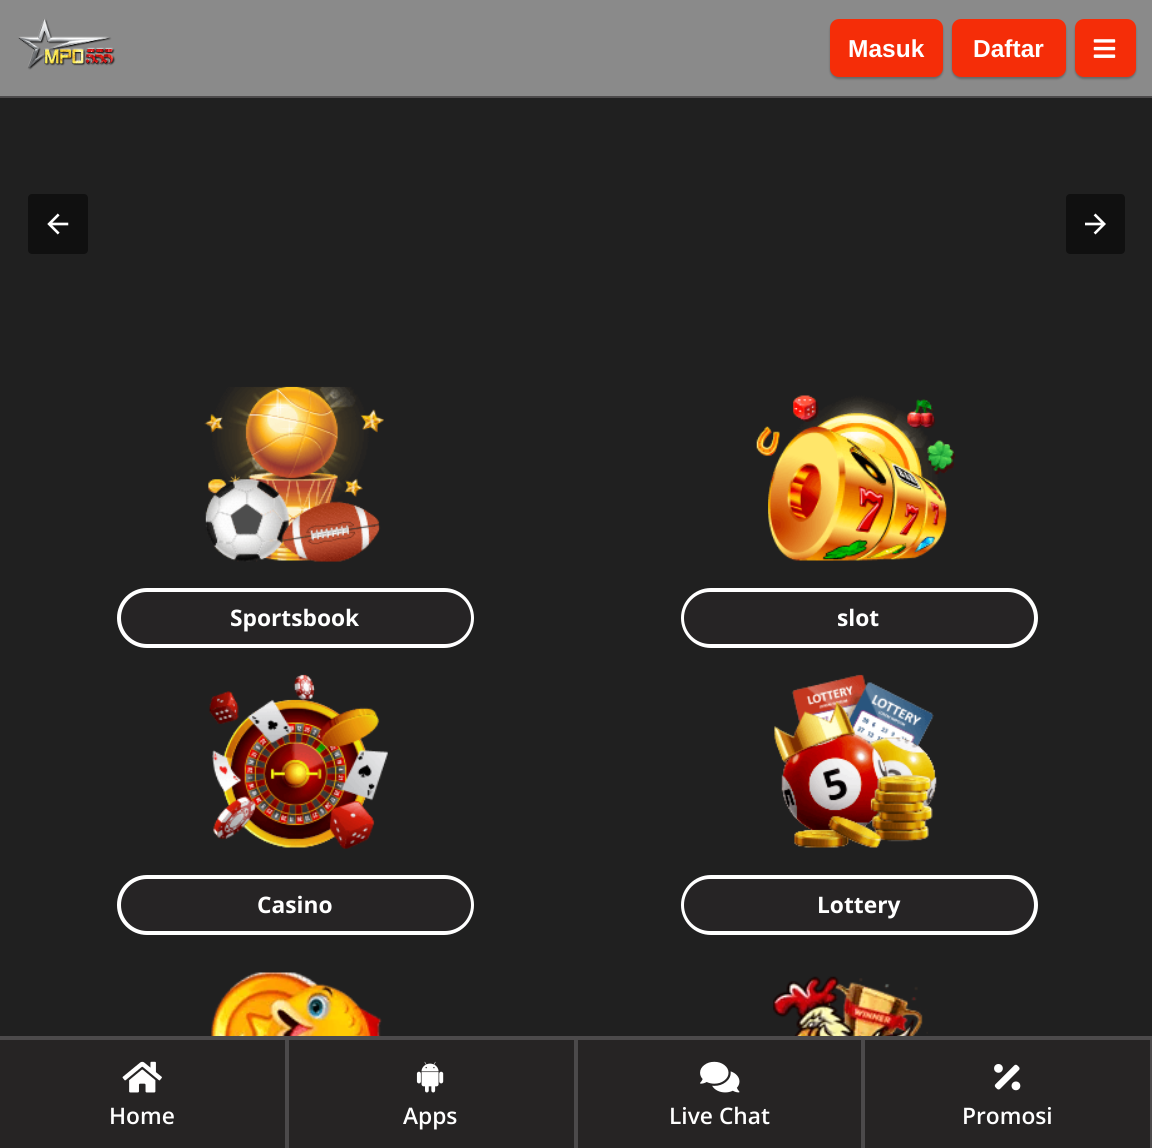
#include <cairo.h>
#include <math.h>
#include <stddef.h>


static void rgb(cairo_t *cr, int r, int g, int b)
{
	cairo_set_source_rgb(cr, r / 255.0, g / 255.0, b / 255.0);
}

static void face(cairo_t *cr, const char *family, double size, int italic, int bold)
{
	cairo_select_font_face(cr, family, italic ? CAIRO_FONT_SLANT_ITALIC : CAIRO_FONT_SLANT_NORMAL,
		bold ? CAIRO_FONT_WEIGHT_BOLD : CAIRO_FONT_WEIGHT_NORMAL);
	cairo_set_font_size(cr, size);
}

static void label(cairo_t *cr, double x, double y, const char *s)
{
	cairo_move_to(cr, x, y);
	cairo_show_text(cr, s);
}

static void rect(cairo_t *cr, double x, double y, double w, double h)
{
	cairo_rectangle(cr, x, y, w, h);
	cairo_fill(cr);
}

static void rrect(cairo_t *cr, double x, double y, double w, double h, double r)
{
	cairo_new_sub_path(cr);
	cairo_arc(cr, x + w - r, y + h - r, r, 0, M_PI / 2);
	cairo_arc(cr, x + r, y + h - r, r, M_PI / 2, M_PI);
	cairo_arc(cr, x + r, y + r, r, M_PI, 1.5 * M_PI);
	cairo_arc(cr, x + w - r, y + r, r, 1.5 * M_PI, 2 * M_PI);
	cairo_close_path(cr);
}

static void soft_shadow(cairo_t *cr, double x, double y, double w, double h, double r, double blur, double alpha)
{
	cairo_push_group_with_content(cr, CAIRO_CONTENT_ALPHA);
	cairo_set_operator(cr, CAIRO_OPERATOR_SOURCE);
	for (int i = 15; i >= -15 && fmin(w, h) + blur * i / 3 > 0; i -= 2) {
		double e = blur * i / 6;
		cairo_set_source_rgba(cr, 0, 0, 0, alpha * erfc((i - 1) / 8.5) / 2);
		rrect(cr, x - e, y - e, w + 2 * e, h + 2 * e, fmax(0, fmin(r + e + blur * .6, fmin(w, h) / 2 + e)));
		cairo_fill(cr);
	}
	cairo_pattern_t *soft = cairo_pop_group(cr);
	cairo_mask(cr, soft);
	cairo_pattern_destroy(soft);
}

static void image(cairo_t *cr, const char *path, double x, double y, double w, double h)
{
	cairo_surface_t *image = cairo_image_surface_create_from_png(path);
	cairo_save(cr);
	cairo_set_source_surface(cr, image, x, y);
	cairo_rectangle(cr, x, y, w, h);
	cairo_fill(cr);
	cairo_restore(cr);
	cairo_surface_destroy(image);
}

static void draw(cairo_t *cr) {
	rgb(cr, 32, 32, 32);
	cairo_paint(cr);
	rgb(cr, 138, 138, 138);
	rect(cr, 0, 0, 1152, 96);
	rgb(cr, 76, 74, 75);
	rect(cr, 0, 96, 1152, 2);
	image(cr, "image0.png", 18, 18, 98, 52);
	rgb(cr, 0, 0, 0);
	soft_shadow(cr, 830, 21, 113, 58, 9, 1, 0.25);
	rgb(cr, 245, 45, 8);
	rrect(cr, 831, 20, 111, 56, 8);
	cairo_fill_preserve(cr);
	cairo_stroke(cr);
	face(cr, "Liberation Sans", 24.5, 0, 1);
	rgb(cr, 255, 255, 255);
	label(cr, 848, 57, "Masuk");
	rgb(cr, 0, 0, 0);
	soft_shadow(cr, 952, 21, 114, 58, 9, 1, 0.25);
	rgb(cr, 245, 45, 8);
	rrect(cr, 953, 20, 112, 56, 8);
	cairo_fill_preserve(cr);
	cairo_stroke(cr);
	rgb(cr, 255, 255, 255);
	label(cr, 973, 57, "Daftar");
	rgb(cr, 0, 0, 0);
	soft_shadow(cr, 1075, 21, 61, 58, 9, 1, 0.25);
	rgb(cr, 245, 45, 8);
	rrect(cr, 1076, 20, 59, 56, 8);
	cairo_fill_preserve(cr);
	cairo_stroke(cr);
	image(cr, "image1.png", 1093, 39, 23, 19);
	rgb(cr, 16, 16, 16);
	rrect(cr, 28, 194, 60, 60, 4);
	cairo_fill(cr);
	image(cr, "image2.png", 47, 213, 22, 22);
	rrect(cr, 1066, 194, 59, 60, 4);
	cairo_fill(cr);
	image(cr, "image3.png", 1085, 213, 21, 22);
	image(cr, "image4.png", 204, 386, 180, 176);
	rgb(cr, 255, 255, 255);
	rrect(cr, 117, 588, 357, 60, 30);
	cairo_fill(cr);
	rgb(cr, 38, 36, 37);
	rrect(cr, 121, 592, 350, 52, 26);
	cairo_fill(cr);
	face(cr, "Open Sans", 22.75, 0, 1);
	rgb(cr, 255, 255, 255);
	label(cr, 230, 626, "Sportsbook");
	image(cr, "image5.png", 756, 395, 199, 166);
	rrect(cr, 681, 588, 357, 60, 30);
	cairo_fill(cr);
	rgb(cr, 38, 36, 37);
	rrect(cr, 684, 592, 350, 52, 26);
	cairo_fill(cr);
	rgb(cr, 255, 255, 255);
	label(cr, 837, 626, "slot");
	image(cr, "image6.png", 209, 674, 179, 175);
	rrect(cr, 117, 875, 357, 60, 30);
	cairo_fill(cr);
	rgb(cr, 38, 36, 37);
	rrect(cr, 121, 879, 350, 52, 26);
	cairo_fill(cr);
	rgb(cr, 255, 255, 255);
	label(cr, 257, 913, "Casino");
	image(cr, "image7.png", 774, 674, 163, 174);
	rrect(cr, 681, 875, 357, 60, 30);
	cairo_fill(cr);
	rgb(cr, 38, 36, 37);
	rrect(cr, 684, 879, 350, 52, 26);
	cairo_fill(cr);
	rgb(cr, 255, 255, 255);
	label(cr, 817, 913, "Lottery");
	image(cr, "image8.png", 211, 972, 171, 64);
	image(cr, "image9.png", 773, 976, 155, 60);
	rgb(cr, 38, 36, 36);
	rect(cr, 0, 1040, 1150, 108);
	rgb(cr, 76, 74, 75);
	rect(cr, 0, 1036, 1152, 4);
	rect(cr, 285, 1036, 4, 112);
	image(cr, "image10.png", 122, 1061, 40, 32);
	face(cr, "Open Sans SemiBold", 22.75, 0, 0);
	rgb(cr, 255, 255, 255);
	label(cr, 109, 1124, "Home");
	rgb(cr, 76, 74, 75);
	rect(cr, 574, 1036, 4, 112);
	image(cr, "image11.png", 416, 1061, 28, 32);
	rgb(cr, 255, 255, 255);
	label(cr, 403, 1124, "Apps");
	rgb(cr, 76, 74, 75);
	rect(cr, 861, 1036, 4, 112);
	image(cr, "image12.png", 700, 1061, 40, 32);
	rgb(cr, 255, 255, 255);
	label(cr, 669, 1124, "Live Chat");
	rgb(cr, 76, 74, 75);
	rect(cr, 1150, 1036, 2, 112);
	image(cr, "image13.png", 994, 1064, 27, 27);
	rgb(cr, 255, 255, 255);
	label(cr, 962, 1124, "Promosi");
}

int main(void) {
	cairo_surface_t *surface = cairo_image_surface_create(CAIRO_FORMAT_RGB24, 1152, 1148);
	cairo_t *cr = cairo_create(surface);
	cairo_font_options_t *options = cairo_font_options_create();
	cairo_font_options_set_hint_metrics(options, CAIRO_HINT_METRICS_OFF);
	cairo_font_options_set_hint_style(options, CAIRO_HINT_STYLE_NONE);
	cairo_set_font_options(cr, options);
	cairo_set_miter_limit(cr, 4);
	draw(cr);
	cairo_surface_write_to_png(surface, "render.png");
	cairo_font_options_destroy(options);
	cairo_destroy(cr);
	cairo_surface_destroy(surface);
	return 0;
}
